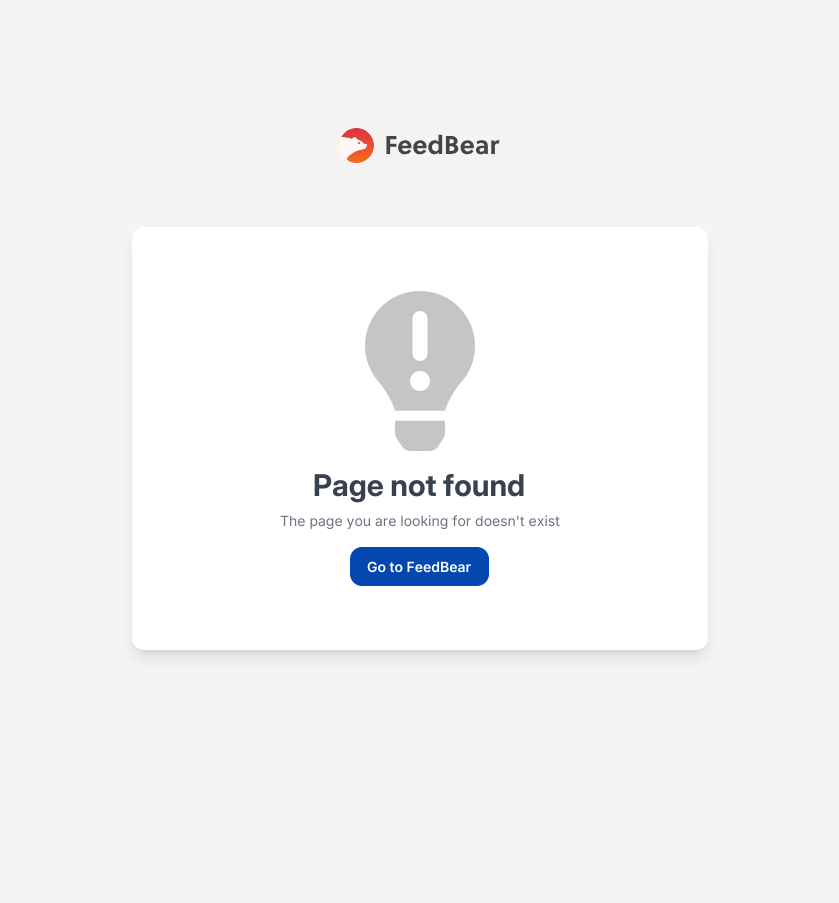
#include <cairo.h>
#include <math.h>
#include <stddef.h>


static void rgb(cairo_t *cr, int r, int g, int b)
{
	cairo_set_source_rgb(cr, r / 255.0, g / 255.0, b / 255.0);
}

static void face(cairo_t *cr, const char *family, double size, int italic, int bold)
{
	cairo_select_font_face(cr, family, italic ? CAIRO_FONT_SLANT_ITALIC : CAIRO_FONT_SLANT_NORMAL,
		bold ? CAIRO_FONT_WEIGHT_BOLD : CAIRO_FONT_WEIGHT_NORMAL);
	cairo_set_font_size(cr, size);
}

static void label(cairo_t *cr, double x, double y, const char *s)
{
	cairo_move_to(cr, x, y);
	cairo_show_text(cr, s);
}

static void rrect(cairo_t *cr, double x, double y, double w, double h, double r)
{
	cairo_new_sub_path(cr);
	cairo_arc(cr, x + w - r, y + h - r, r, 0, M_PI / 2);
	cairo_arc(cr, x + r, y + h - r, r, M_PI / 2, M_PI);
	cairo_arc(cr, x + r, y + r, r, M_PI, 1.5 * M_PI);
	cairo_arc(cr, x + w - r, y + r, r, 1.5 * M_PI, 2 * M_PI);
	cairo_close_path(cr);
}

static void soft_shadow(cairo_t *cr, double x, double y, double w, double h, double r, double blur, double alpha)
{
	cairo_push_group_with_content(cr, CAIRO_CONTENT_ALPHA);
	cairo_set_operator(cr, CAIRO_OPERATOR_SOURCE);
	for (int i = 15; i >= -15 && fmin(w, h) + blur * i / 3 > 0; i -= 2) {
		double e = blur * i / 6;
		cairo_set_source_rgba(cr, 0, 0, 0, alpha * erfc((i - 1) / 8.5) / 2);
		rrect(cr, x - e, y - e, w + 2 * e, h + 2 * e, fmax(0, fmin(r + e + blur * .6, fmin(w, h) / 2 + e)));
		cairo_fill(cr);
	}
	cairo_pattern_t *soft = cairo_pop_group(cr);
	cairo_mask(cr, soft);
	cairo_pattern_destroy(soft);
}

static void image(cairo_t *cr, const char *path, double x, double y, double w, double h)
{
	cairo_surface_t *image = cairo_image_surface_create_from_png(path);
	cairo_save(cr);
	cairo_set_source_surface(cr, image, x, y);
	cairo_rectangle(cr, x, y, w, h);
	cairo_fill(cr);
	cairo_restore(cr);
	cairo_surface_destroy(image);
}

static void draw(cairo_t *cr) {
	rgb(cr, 246, 243, 243);
	cairo_paint(cr);
	image(cr, "image0.png", 339, 128, 161, 35);
	rgb(cr, 0, 0, 0);
	soft_shadow(cr, 136, 235, 568, 415, 8, 3, 0.1);
	soft_shadow(cr, 135, 240, 570, 417, 9, 7.5, 0.1);
	rgb(cr, 255, 255, 255);
	rrect(cr, 132, 227, 576, 423, 12);
	cairo_fill(cr);
	image(cr, "image1.png", 365, 291, 110, 160);
	face(cr, "Inter", 30, 0, 1);
	rgb(cr, 55, 65, 81);
	label(cr, 313, 496, "Page not found");
	face(cr, "Inter", 14, 0, 0);
	rgb(cr, 107, 114, 128);
	label(cr, 280, 526, "The page you are looking for doesn't exist");
	rgb(cr, 2, 72, 175);
	rrect(cr, 350.5, 547.5, 138, 38, 11.5);
	cairo_fill_preserve(cr);
	cairo_set_line_width(cr, 1);
	cairo_stroke(cr);
	face(cr, "Inter SemiBold", 14, 0, 0);
	rgb(cr, 255, 255, 255);
	label(cr, 367, 572, "Go to FeedBear");
}

int main(void) {
	cairo_surface_t *surface = cairo_image_surface_create(CAIRO_FORMAT_RGB24, 839, 903);
	cairo_t *cr = cairo_create(surface);
	cairo_font_options_t *options = cairo_font_options_create();
	cairo_font_options_set_hint_metrics(options, CAIRO_HINT_METRICS_OFF);
	cairo_font_options_set_hint_style(options, CAIRO_HINT_STYLE_NONE);
	cairo_set_font_options(cr, options);
	cairo_set_miter_limit(cr, 4);
	draw(cr);
	cairo_surface_write_to_png(surface, "render.png");
	cairo_font_options_destroy(options);
	cairo_destroy(cr);
	cairo_surface_destroy(surface);
	return 0;
}
